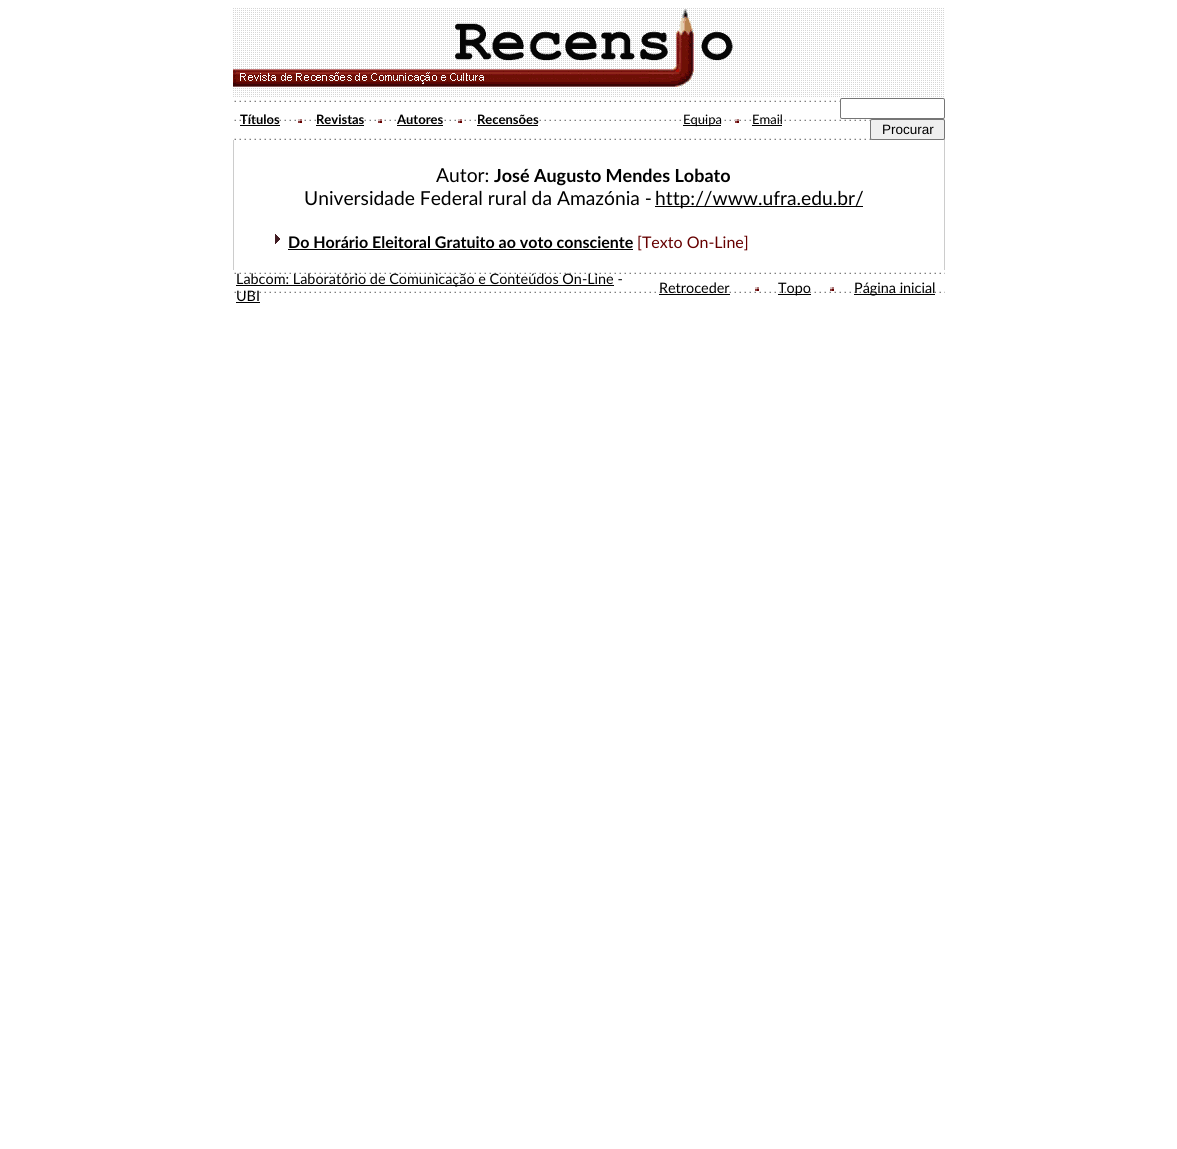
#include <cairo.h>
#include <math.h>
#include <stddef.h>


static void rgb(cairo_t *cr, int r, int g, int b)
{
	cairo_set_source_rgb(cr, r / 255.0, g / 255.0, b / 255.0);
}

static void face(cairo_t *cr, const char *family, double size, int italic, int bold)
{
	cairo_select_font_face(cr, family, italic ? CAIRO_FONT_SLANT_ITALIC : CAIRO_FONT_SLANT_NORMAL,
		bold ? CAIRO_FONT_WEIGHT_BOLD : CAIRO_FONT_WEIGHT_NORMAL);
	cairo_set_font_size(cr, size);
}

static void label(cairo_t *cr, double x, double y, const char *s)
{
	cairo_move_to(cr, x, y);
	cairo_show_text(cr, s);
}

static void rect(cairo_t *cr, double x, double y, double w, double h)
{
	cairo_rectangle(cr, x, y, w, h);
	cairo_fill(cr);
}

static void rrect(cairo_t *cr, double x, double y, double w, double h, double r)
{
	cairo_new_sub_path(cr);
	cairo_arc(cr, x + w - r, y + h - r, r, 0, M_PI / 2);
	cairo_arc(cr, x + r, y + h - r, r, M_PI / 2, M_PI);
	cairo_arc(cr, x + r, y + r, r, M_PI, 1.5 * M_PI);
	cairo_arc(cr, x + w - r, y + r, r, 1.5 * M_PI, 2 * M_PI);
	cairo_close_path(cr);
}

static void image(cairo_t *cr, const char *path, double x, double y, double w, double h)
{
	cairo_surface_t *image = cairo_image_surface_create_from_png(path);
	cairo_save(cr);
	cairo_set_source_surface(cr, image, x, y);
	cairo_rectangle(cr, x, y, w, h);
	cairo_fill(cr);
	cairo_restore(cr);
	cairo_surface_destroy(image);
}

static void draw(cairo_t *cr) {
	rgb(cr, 255, 255, 255);
	cairo_paint(cr);
	image(cr, "image0.png", 233, 8, 711, 89);
	image(cr, "image1.png", 233, 9, 500, 78);
	image(cr, "image2.png", 234, 100, 711, 40);
	face(cr, "Lato", 13, 0, 1);
	rgb(cr, 0, 0, 0);
	label(cr, 240, 124, "Títulos");
	rect(cr, 240, 125, 40, 1);
	image(cr, "image3.png", 298, 119, 4, 4);
	label(cr, 316, 124, "Revistas");
	rect(cr, 316, 125, 48, 1);
	image(cr, "image3.png", 378, 119, 4, 4);
	label(cr, 397, 124, "Autores");
	rect(cr, 397, 125, 46, 1);
	image(cr, "image3.png", 458, 119, 4, 4);
	label(cr, 477, 124, "Recensões");
	rect(cr, 477, 125, 61, 1);
	rect(cr, 683, 125, 38, 1);
	face(cr, "Lato", 13, 0, 0);
	label(cr, 683, 124, "Equipa");
	image(cr, "image3.png", 735, 119, 4, 4);
	label(cr, 752, 124, "Email");
	rect(cr, 752, 125, 30, 1);
	rgb(cr, 255, 255, 255);
	rrect(cr, 840.5, 98.5, 104, 20, 1.5);
	cairo_fill_preserve(cr);
	rgb(cr, 118, 118, 118);
	cairo_set_line_width(cr, 1);
	cairo_stroke(cr);
	rgb(cr, 239, 239, 239);
	rrect(cr, 870.5, 119.5, 74, 20, 1.5);
	cairo_fill_preserve(cr);
	rgb(cr, 118, 118, 118);
	cairo_stroke(cr);
	face(cr, "Liberation Sans", 13.5, 0, 0);
	rgb(cr, 0, 0, 0);
	label(cr, 882, 134, "Procurar");
	rgb(cr, 204, 204, 204);
	rect(cr, 233, 140, 712, 130);
	rgb(cr, 255, 255, 255);
	rect(cr, 234, 140, 710, 130);
	face(cr, "Lato", 19.25, 0, 0);
	rgb(cr, 0, 0, 0);
	label(cr, 436, 182, "Autor:");
	face(cr, "Lato", 18, 0, 1);
	label(cr, 494, 182, "José Augusto Mendes Lobato");
	face(cr, "Lato", 19.25, 0, 0);
	label(cr, 304, 205, "Universidade Federal rural da Amazónia -");
	rect(cr, 655, 206, 208, 1);
	label(cr, 655, 205, "http://www.ufra.edu.br/");
	image(cr, "image4.png", 275, 234, 5, 10);
	face(cr, "Lato", 16, 0, 1);
	label(cr, 288, 248, "Do Horário Eleitoral Gratuito ao voto consciente");
	rect(cr, 288, 249, 345, 1);
	face(cr, "Lato", 16, 0, 0);
	rgb(cr, 102, 0, 0);
	label(cr, 637, 248, "[Texto On-Line]");
	image(cr, "image5.png", 233, 270, 712, 34);
	rgb(cr, 0, 0, 0);
	rect(cr, 236, 285, 378, 1);
	face(cr, "Lato", 14.4, 0, 0);
	label(cr, 236, 284, "Labcom: Laboratório de Comunicação e Conteúdos On-Line -");
	label(cr, 236, 301, "UBI");
	rect(cr, 236, 302, 24, 1);
	label(cr, 659, 293, "Retroceder");
	rect(cr, 659, 294, 71, 1);
	image(cr, "image3.png", 755, 287, 4, 4);
	rect(cr, 778, 294, 33, 1);
	label(cr, 778, 293, "Topo");
	image(cr, "image3.png", 830, 287, 4, 4);
	rect(cr, 854, 294, 81, 1);
	label(cr, 854, 293, "Página inicial");
}

int main(void) {
	cairo_surface_t *surface = cairo_image_surface_create(CAIRO_FORMAT_RGB24, 1177, 1149);
	cairo_t *cr = cairo_create(surface);
	cairo_font_options_t *options = cairo_font_options_create();
	cairo_font_options_set_hint_metrics(options, CAIRO_HINT_METRICS_OFF);
	cairo_font_options_set_hint_style(options, CAIRO_HINT_STYLE_NONE);
	cairo_set_font_options(cr, options);
	cairo_set_miter_limit(cr, 4);
	draw(cr);
	cairo_surface_write_to_png(surface, "render.png");
	cairo_font_options_destroy(options);
	cairo_destroy(cr);
	cairo_surface_destroy(surface);
	return 0;
}
